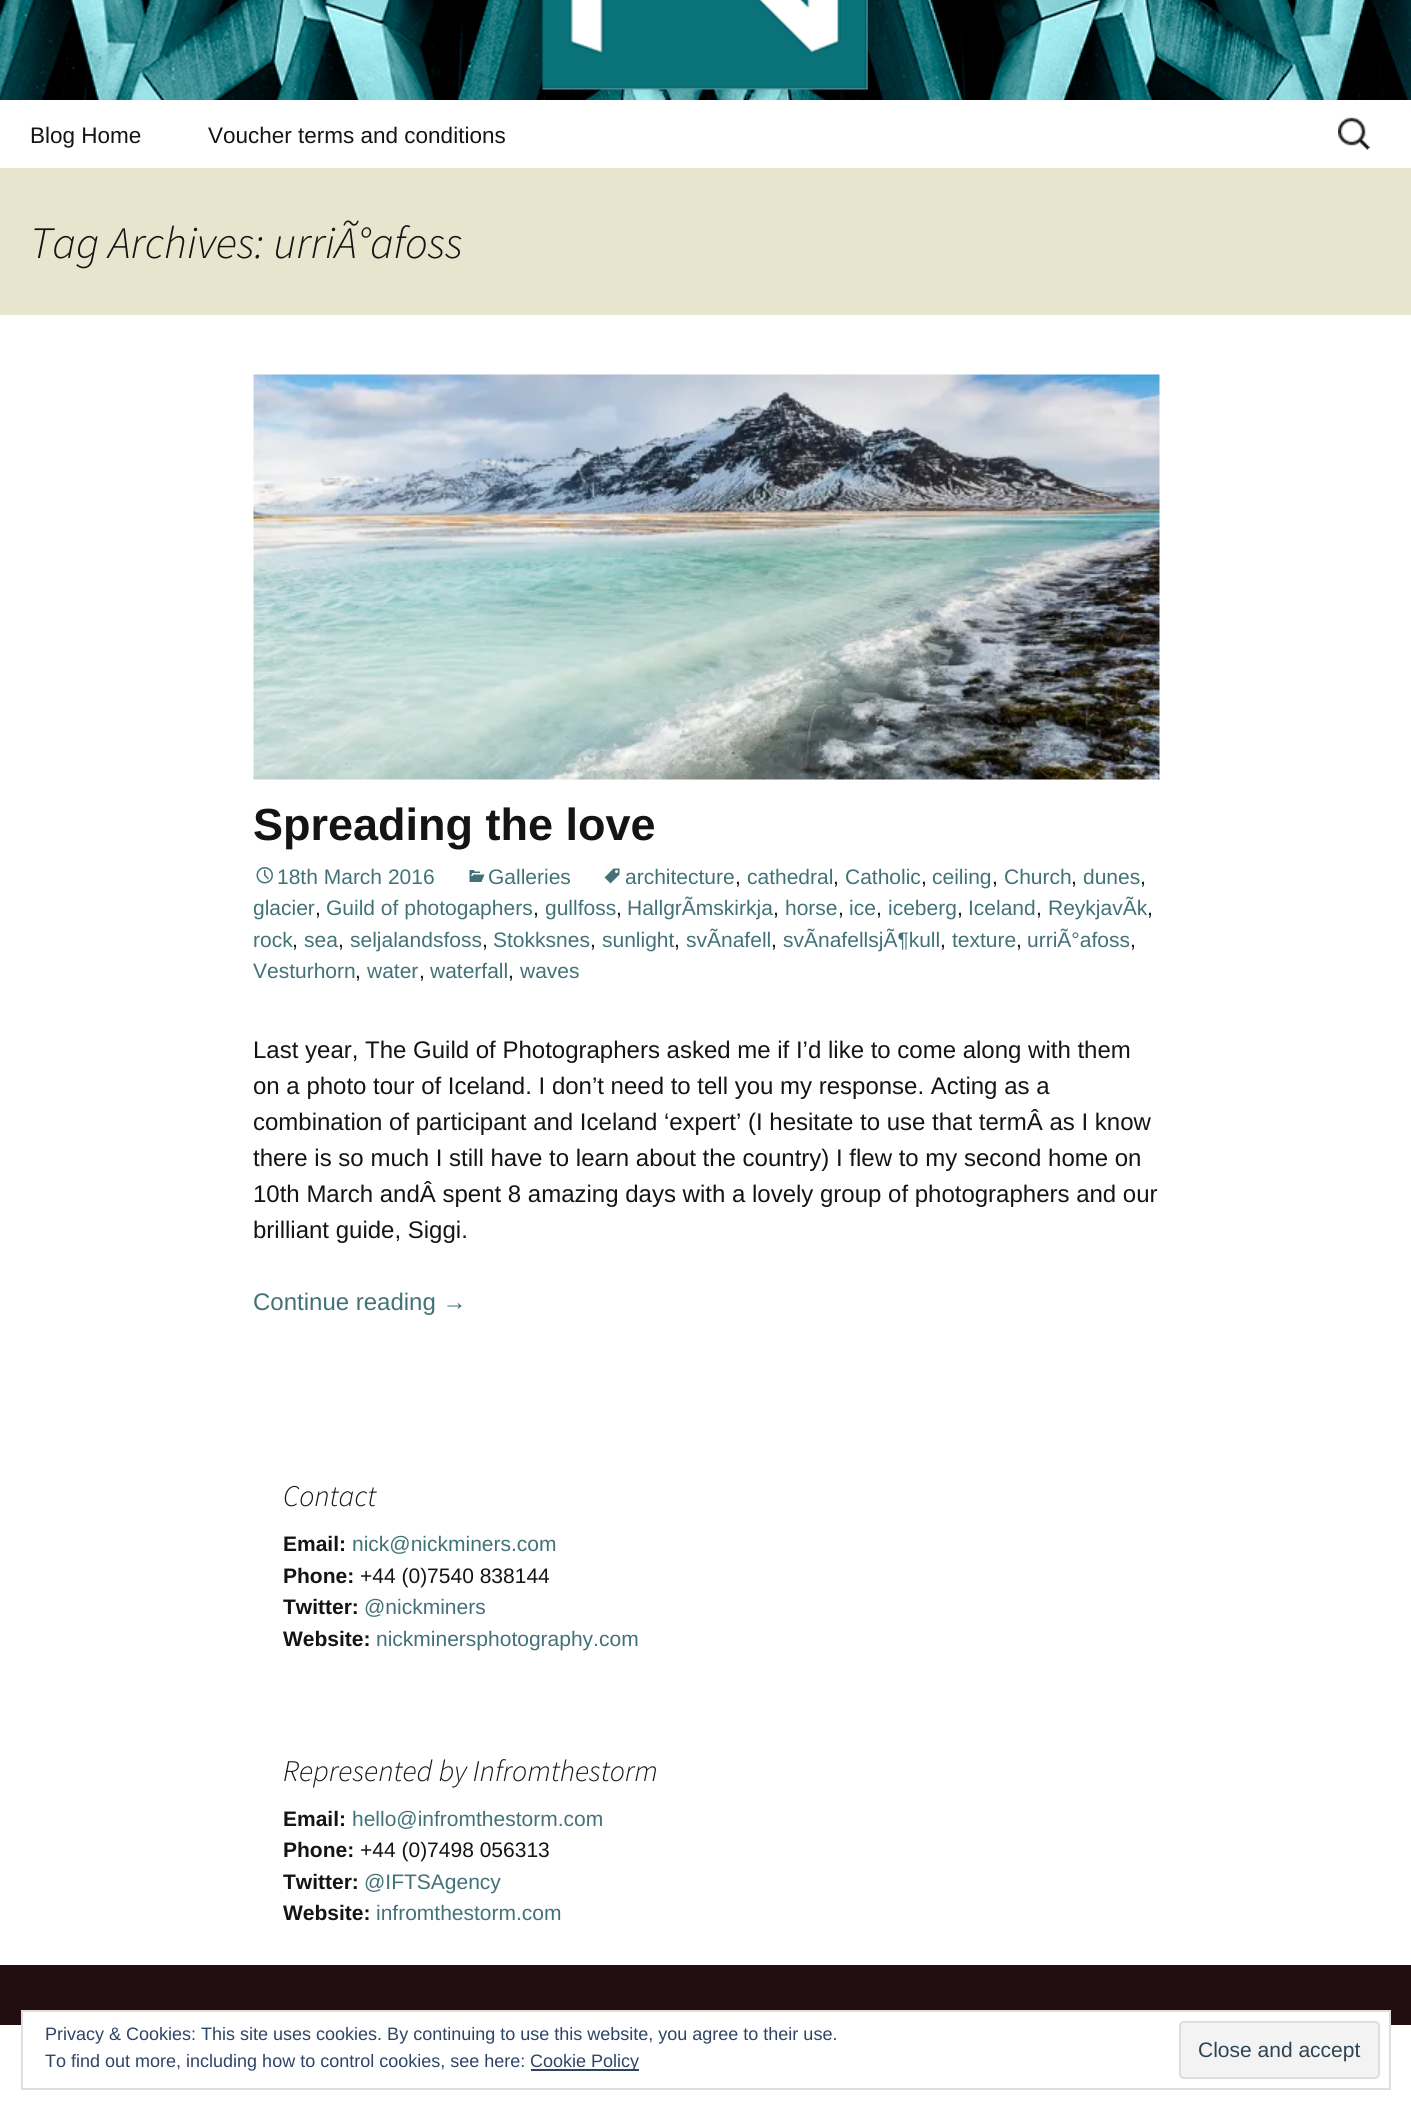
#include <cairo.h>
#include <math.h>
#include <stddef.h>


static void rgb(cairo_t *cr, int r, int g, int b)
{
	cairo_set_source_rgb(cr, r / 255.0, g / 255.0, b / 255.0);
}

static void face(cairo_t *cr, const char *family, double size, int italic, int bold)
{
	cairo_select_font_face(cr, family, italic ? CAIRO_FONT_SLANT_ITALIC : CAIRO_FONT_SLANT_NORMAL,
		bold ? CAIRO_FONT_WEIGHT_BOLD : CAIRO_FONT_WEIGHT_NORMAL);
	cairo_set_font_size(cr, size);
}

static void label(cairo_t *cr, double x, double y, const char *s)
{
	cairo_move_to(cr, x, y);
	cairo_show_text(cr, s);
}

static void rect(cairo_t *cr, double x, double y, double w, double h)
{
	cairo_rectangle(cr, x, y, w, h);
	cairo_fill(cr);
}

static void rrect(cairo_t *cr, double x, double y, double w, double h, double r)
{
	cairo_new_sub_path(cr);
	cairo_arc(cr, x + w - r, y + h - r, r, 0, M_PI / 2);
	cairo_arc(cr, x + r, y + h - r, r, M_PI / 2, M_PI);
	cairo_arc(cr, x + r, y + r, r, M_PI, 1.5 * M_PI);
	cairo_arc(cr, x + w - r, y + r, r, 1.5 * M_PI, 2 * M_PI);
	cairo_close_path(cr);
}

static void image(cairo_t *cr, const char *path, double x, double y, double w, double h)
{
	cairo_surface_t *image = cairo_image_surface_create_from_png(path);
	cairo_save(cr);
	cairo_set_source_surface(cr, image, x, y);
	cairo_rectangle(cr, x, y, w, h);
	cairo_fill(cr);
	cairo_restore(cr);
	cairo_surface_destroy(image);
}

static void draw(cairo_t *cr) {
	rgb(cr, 255, 255, 255);
	cairo_paint(cr);
	image(cr, "image0.png", 0, 0, 1411, 100);
	face(cr, "Liberation Sans", 22.5, 0, 0);
	rgb(cr, 20, 20, 18);
	label(cr, 30, 143, "Blog Home");
	label(cr, 208, 143, "Voucher terms and conditions");
	image(cr, "image1.png", 1338, 117, 32, 33);
	rgb(cr, 232, 229, 206);
	rect(cr, 0, 168, 1411, 147);
	face(cr, "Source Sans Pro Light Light", 45, 1, 0);
	rgb(cr, 20, 20, 18);
	label(cr, 30, 258, "Tag Archives: urriÃ°afoss");
	image(cr, "image2.png", 253, 374, 907, 406);
	face(cr, "Liberation Sans", 45, 0, 1);
	label(cr, 253, 840, "Spreading the love");
	image(cr, "image3.png", 604, 868, 16, 16);
	face(cr, "Liberation Sans", 21, 0, 0);
	rgb(cr, 66, 114, 120);
	label(cr, 625, 884, "architecture");
	rgb(cr, 20, 20, 18);
	label(cr, 735, 884, ",");
	rgb(cr, 66, 114, 120);
	label(cr, 747, 884, "cathedral");
	rgb(cr, 20, 20, 18);
	label(cr, 833, 884, ",");
	rgb(cr, 66, 114, 120);
	label(cr, 845, 884, "Catholic");
	rgb(cr, 20, 20, 18);
	label(cr, 921, 884, ",");
	rgb(cr, 66, 114, 120);
	label(cr, 932, 884, "ceiling");
	rgb(cr, 20, 20, 18);
	label(cr, 992, 884, ",");
	rgb(cr, 66, 114, 120);
	label(cr, 1004, 884, "Church");
	rgb(cr, 20, 20, 18);
	label(cr, 1071, 884, ",");
	rgb(cr, 66, 114, 120);
	label(cr, 1083, 884, "dunes");
	rgb(cr, 20, 20, 18);
	label(cr, 1140, 884, ",");
	rgb(cr, 66, 114, 120);
	label(cr, 253, 915, "glacier");
	rgb(cr, 20, 20, 18);
	label(cr, 315, 915, ",");
	rgb(cr, 66, 114, 120);
	label(cr, 326, 915, "Guild of photogaphers");
	rgb(cr, 20, 20, 18);
	label(cr, 533, 915, ",");
	rgb(cr, 66, 114, 120);
	label(cr, 545, 915, "gullfoss");
	rgb(cr, 20, 20, 18);
	label(cr, 616, 915, ",");
	rgb(cr, 66, 114, 120);
	label(cr, 627, 915, "HallgrÃmskirkja");
	rgb(cr, 20, 20, 18);
	label(cr, 773, 915, ",");
	rgb(cr, 66, 114, 120);
	label(cr, 785, 915, "horse");
	rgb(cr, 20, 20, 18);
	label(cr, 838, 915, ",");
	rgb(cr, 66, 114, 120);
	label(cr, 849, 915, "ice");
	rgb(cr, 20, 20, 18);
	label(cr, 876, 915, ",");
	rgb(cr, 66, 114, 120);
	label(cr, 888, 915, "iceberg");
	rgb(cr, 20, 20, 18);
	label(cr, 957, 915, ",");
	rgb(cr, 66, 114, 120);
	label(cr, 968, 915, "Iceland");
	rgb(cr, 20, 20, 18);
	label(cr, 1036, 915, ",");
	rgb(cr, 66, 114, 120);
	label(cr, 1048, 915, "ReykjavÃk");
	rgb(cr, 20, 20, 18);
	label(cr, 1147, 915, ",");
	rgb(cr, 66, 114, 120);
	label(cr, 253, 947, "rock");
	rgb(cr, 20, 20, 18);
	label(cr, 292, 947, ",");
	rgb(cr, 66, 114, 120);
	label(cr, 304, 947, "sea");
	rgb(cr, 20, 20, 18);
	label(cr, 338, 947, ",");
	rgb(cr, 66, 114, 120);
	label(cr, 350, 947, "seljalandsfoss");
	rgb(cr, 20, 20, 18);
	label(cr, 482, 947, ",");
	rgb(cr, 66, 114, 120);
	label(cr, 493, 947, "Stokksnes");
	rgb(cr, 20, 20, 18);
	label(cr, 590, 947, ",");
	rgb(cr, 66, 114, 120);
	label(cr, 602, 947, "sunlight");
	rgb(cr, 20, 20, 18);
	label(cr, 674, 947, ",");
	rgb(cr, 66, 114, 120);
	label(cr, 686, 947, "svÃnafell");
	rgb(cr, 20, 20, 18);
	label(cr, 771, 947, ",");
	rgb(cr, 66, 114, 120);
	label(cr, 783, 947, "svÃnafellsjÃ¶kull");
	rgb(cr, 20, 20, 18);
	label(cr, 940, 947, ",");
	rgb(cr, 66, 114, 120);
	label(cr, 952, 947, "texture");
	rgb(cr, 20, 20, 18);
	label(cr, 1016, 947, ",");
	rgb(cr, 66, 114, 120);
	label(cr, 1027, 947, "urriÃ°afoss");
	rgb(cr, 20, 20, 18);
	label(cr, 1130, 947, ",");
	rgb(cr, 66, 114, 120);
	label(cr, 253, 978, "Vesturhorn");
	rgb(cr, 20, 20, 18);
	label(cr, 355, 978, ",");
	rgb(cr, 66, 114, 120);
	label(cr, 367, 978, "water");
	rgb(cr, 20, 20, 18);
	label(cr, 419, 978, ",");
	rgb(cr, 66, 114, 120);
	label(cr, 430, 978, "waterfall");
	rgb(cr, 20, 20, 18);
	label(cr, 508, 978, ",");
	rgb(cr, 66, 114, 120);
	label(cr, 520, 978, "waves");
	image(cr, "image4.png", 256, 867, 17, 17);
	label(cr, 277, 884, "18th March 2016");
	image(cr, "image5.png", 469, 870, 16, 12);
	label(cr, 488, 884, "Galleries");
	face(cr, "Liberation Sans", 24, 0, 0);
	rgb(cr, 20, 20, 18);
	label(cr, 253, 1058, "Last year, The Guild of Photographers asked me if I’d like to come along with them");
	label(cr, 253, 1094, "on a photo tour of Iceland. I don’t need to tell you my response. Acting as a");
	label(cr, 253, 1130, "combination of participant and Iceland ‘expert’ (I hesitate to use that termÂ as I know");
	label(cr, 253, 1166, "there is so much I still have to learn about the country) I flew to my second home on");
	label(cr, 253, 1202, "10th March andÂ spent 8 amazing days with a lovely group of photographers and our");
	label(cr, 253, 1238, "brilliant guide, Siggi.");
	rgb(cr, 66, 114, 120);
	label(cr, 253, 1310, "Continue reading →");
	face(cr, "Source Sans Pro Light Light", 30, 1, 0);
	rgb(cr, 20, 20, 18);
	label(cr, 283, 1506, "Contact");
	face(cr, "Liberation Sans", 21, 0, 1);
	label(cr, 283, 1551, "Email:");
	face(cr, "Liberation Sans", 21, 0, 0);
	rgb(cr, 66, 114, 120);
	label(cr, 352, 1551, "nick@nickminers.com");
	face(cr, "Liberation Sans", 21, 0, 1);
	rgb(cr, 20, 20, 18);
	label(cr, 283, 1583, "Phone:");
	face(cr, "Liberation Sans", 21, 0, 0);
	label(cr, 360, 1583, "+44 (0)7540 838144");
	face(cr, "Liberation Sans", 21, 0, 1);
	label(cr, 283, 1614, "Twitter:");
	face(cr, "Liberation Sans", 21, 0, 0);
	rgb(cr, 66, 114, 120);
	label(cr, 364, 1614, "@nickminers");
	face(cr, "Liberation Sans", 21, 0, 1);
	rgb(cr, 20, 20, 18);
	label(cr, 283, 1646, "Website:");
	face(cr, "Liberation Sans", 21, 0, 0);
	rgb(cr, 66, 114, 120);
	label(cr, 376, 1646, "nickminersphotography.com");
	face(cr, "Source Sans Pro Light Light", 30, 1, 0);
	rgb(cr, 20, 20, 18);
	label(cr, 283, 1781, "Represented by Infromthestorm");
	face(cr, "Liberation Sans", 21, 0, 1);
	label(cr, 283, 1826, "Email:");
	face(cr, "Liberation Sans", 21, 0, 0);
	rgb(cr, 66, 114, 120);
	label(cr, 352, 1826, "hello@infromthestorm.com");
	face(cr, "Liberation Sans", 21, 0, 1);
	rgb(cr, 20, 20, 18);
	label(cr, 283, 1857, "Phone:");
	face(cr, "Liberation Sans", 21, 0, 0);
	label(cr, 360, 1857, "+44 (0)7498 056313");
	face(cr, "Liberation Sans", 21, 0, 1);
	label(cr, 283, 1889, "Twitter:");
	face(cr, "Liberation Sans", 21, 0, 0);
	rgb(cr, 66, 114, 120);
	label(cr, 364, 1889, "@IFTSAgency");
	face(cr, "Liberation Sans", 21, 0, 1);
	rgb(cr, 20, 20, 18);
	label(cr, 283, 1920, "Website:");
	face(cr, "Liberation Sans", 21, 0, 0);
	rgb(cr, 66, 114, 120);
	label(cr, 376, 1920, "infromthestorm.com");
	rgb(cr, 34, 14, 16);
	rect(cr, 0, 1965, 1411, 60);
	rgb(cr, 255, 255, 255);
	rect(cr, 23, 2012, 1366, 13);
	cairo_rectangle(cr, 22, 2011, 1368, 78);
	rgb(cr, 222, 222, 222);
	cairo_stroke(cr);
	face(cr, "Liberation Sans", 18, 0, 0);
	rgb(cr, 46, 68, 103);
	label(cr, 45, 2040, "Privacy & Cookies: This site uses cookies. By continuing to use this website, you agree to their use.");
	label(cr, 45, 2067, "To find out more, including how to control cookies, see here:");
	rect(cr, 531, 2069, 108, 2);
	label(cr, 530, 2067, "Cookie Policy");
	rgb(cr, 243, 243, 243);
	rrect(cr, 1180, 2022, 199, 56, 4);
	cairo_fill_preserve(cr);
	rgb(cr, 222, 222, 222);
	cairo_stroke(cr);
	face(cr, "Liberation Sans", 21, 0, 0);
	rgb(cr, 46, 68, 83);
	label(cr, 1198, 2057, "Close and accept");
}

int main(void) {
	cairo_surface_t *surface = cairo_image_surface_create(CAIRO_FORMAT_RGB24, 1411, 2110);
	cairo_t *cr = cairo_create(surface);
	cairo_font_options_t *options = cairo_font_options_create();
	cairo_font_options_set_hint_metrics(options, CAIRO_HINT_METRICS_OFF);
	cairo_font_options_set_hint_style(options, CAIRO_HINT_STYLE_NONE);
	cairo_set_font_options(cr, options);
	cairo_set_miter_limit(cr, 4);
	draw(cr);
	cairo_surface_write_to_png(surface, "render.png");
	cairo_font_options_destroy(options);
	cairo_destroy(cr);
	cairo_surface_destroy(surface);
	return 0;
}
